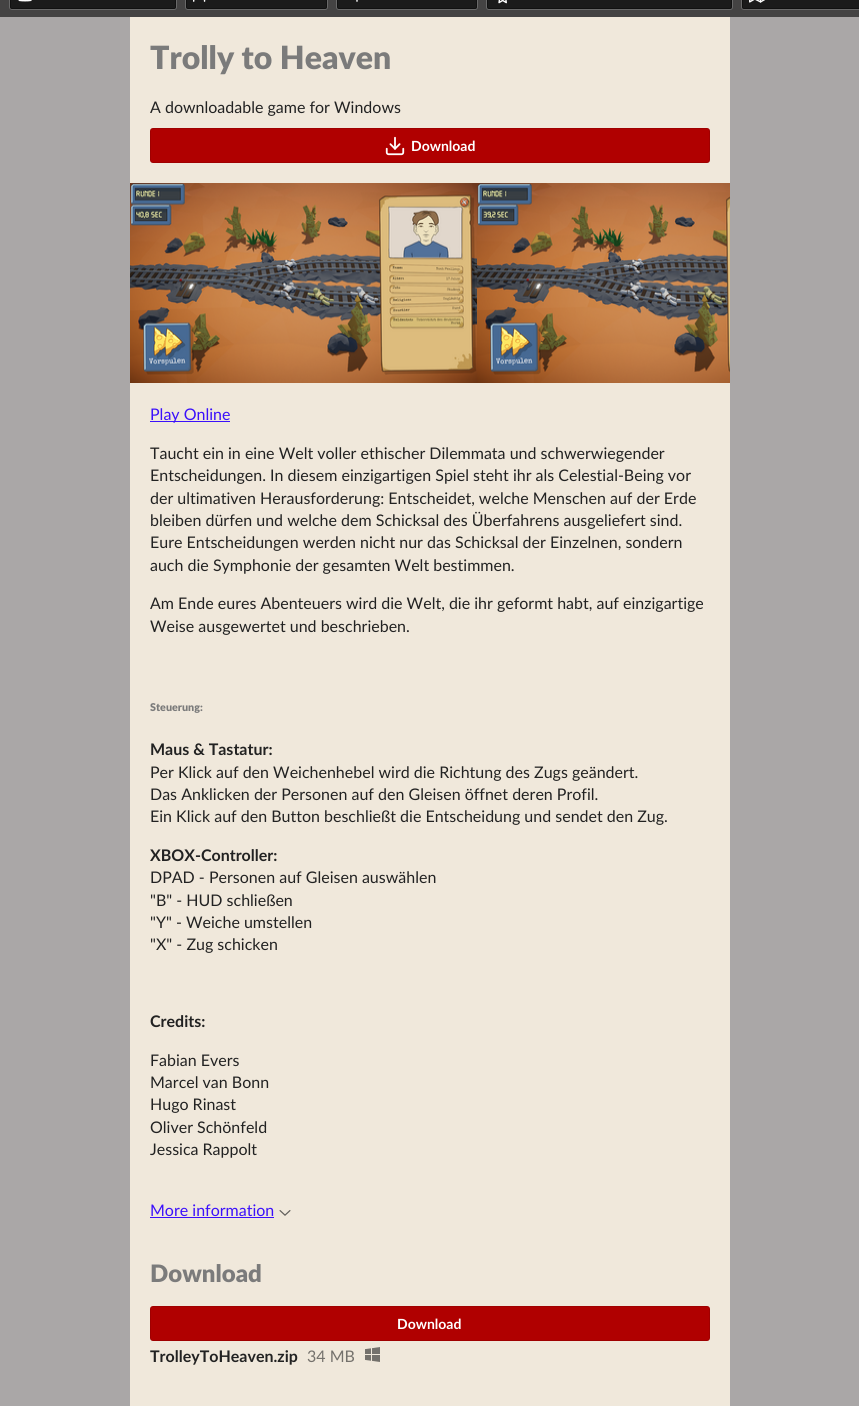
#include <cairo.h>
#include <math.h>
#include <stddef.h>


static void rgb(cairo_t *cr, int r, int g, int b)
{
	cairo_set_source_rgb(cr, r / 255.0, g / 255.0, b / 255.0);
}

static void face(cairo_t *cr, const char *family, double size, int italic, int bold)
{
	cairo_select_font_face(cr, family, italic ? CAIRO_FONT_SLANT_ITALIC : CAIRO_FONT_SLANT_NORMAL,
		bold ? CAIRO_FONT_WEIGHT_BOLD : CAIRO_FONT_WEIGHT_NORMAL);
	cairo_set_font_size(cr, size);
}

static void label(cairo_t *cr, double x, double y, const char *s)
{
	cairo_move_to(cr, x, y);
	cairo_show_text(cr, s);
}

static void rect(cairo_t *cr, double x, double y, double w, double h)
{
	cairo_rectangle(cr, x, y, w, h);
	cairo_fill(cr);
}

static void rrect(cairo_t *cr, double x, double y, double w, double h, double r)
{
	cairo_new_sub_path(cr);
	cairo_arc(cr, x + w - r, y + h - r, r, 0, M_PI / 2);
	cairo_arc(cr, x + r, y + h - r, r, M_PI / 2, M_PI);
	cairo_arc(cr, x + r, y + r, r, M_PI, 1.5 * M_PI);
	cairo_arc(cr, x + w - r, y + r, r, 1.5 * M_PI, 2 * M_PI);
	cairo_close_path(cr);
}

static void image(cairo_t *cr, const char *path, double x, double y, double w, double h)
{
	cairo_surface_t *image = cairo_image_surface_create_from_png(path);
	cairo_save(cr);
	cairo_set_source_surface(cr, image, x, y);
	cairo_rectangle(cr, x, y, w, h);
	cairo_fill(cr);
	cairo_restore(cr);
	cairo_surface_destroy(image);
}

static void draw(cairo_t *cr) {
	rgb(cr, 170, 167, 167);
	cairo_paint(cr);
	rgb(cr, 68, 67, 67);
	rect(cr, 0, 0, 859, 17);
	rrect(cr, 9.5, -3.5, 167, 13, 2.5);
	rgb(cr, 105, 105, 105);
	cairo_set_line_width(cr, 1);
	cairo_stroke(cr);
	cairo_set_source_rgba(cr, 0, 0, 0, 0.6);
	rrect(cr, 10, -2, 166, 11, 2);
	cairo_fill(cr);
	rrect(cr, 10.5, -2.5, 165, 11, 1.5);
	cairo_set_source_rgba(cr, 0.039, 0.039, 0.039, 0.5);
	cairo_stroke(cr);
	image(cr, "image0.png", 18, 0, 14, 2);
	rrect(cr, 185.5, -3.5, 142, 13, 2.5);
	rgb(cr, 105, 105, 105);
	cairo_stroke(cr);
	cairo_set_source_rgba(cr, 0, 0, 0, 0.6);
	rrect(cr, 186, -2, 141, 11, 2);
	cairo_fill(cr);
	rrect(cr, 186.5, -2.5, 140, 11, 1.5);
	cairo_set_source_rgba(cr, 0.039, 0.039, 0.039, 0.5);
	cairo_stroke(cr);
	image(cr, "image1.png", 193, 0, 13, 2);
	rrect(cr, 336.5, -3.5, 141, 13, 2.5);
	rgb(cr, 105, 105, 105);
	cairo_stroke(cr);
	cairo_set_source_rgba(cr, 0, 0, 0, 0.6);
	rrect(cr, 337, -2, 140, 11, 2);
	cairo_fill(cr);
	rrect(cr, 337.5, -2.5, 139, 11, 1.5);
	cairo_set_source_rgba(cr, 0.039, 0.039, 0.039, 0.5);
	cairo_stroke(cr);
	image(cr, "image2.png", 356, 0, 2, 2);
	rrect(cr, 486.5, -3.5, 246, 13, 2.5);
	rgb(cr, 105, 105, 105);
	cairo_stroke(cr);
	cairo_set_source_rgba(cr, 0, 0, 0, 0.6);
	rrect(cr, 487, -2, 245, 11, 2);
	cairo_fill(cr);
	rrect(cr, 487.5, -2.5, 244, 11, 1.5);
	cairo_set_source_rgba(cr, 0.039, 0.039, 0.039, 0.5);
	cairo_stroke(cr);
	image(cr, "image3.png", 498, 0, 9, 4);
	rrect(cr, 741.5, -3.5, 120, 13, 2.5);
	rgb(cr, 105, 105, 105);
	cairo_stroke(cr);
	cairo_set_source_rgba(cr, 0, 0, 0, 0.6);
	cairo_new_path(cr);
	cairo_move_to(cr, 744, -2);
	cairo_line_to(cr, 859, -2);
	cairo_line_to(cr, 859, 9);
	cairo_line_to(cr, 744, 9);
	cairo_curve_to(cr, 743, 9, 742, 8, 742, 7);
	cairo_line_to(cr, 742, 0);
	cairo_curve_to(cr, 742, -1, 743, -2, 744, -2);
	cairo_close_path(cr);
	cairo_fill(cr);
	rrect(cr, 742.5, -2.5, 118, 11, 1.5);
	cairo_set_source_rgba(cr, 0.039, 0.039, 0.039, 0.5);
	cairo_stroke(cr);
	image(cr, "image4.png", 749, 0, 16, 3);
	rgb(cr, 240, 232, 219);
	rect(cr, 130, 17, 600, 1389);
	face(cr, "Lato Black", 32, 0, 0);
	rgb(cr, 123, 123, 123);
	label(cr, 150, 69, "Trolly to Heaven");
	face(cr, "Lato", 16, 0, 0);
	rgb(cr, 34, 34, 34);
	label(cr, 150, 113, "A downloadable game for Windows");
	rgb(cr, 176, 0, 0);
	rrect(cr, 150, 128, 560, 35, 3);
	cairo_fill(cr);
	rrect(cr, 150.5, 128.5, 559, 34, 2.5);
	cairo_set_source_rgba(cr, 0, 0, 0, 0.1);
	cairo_stroke(cr);
	image(cr, "image5.png", 385, 136, 20, 20);
	face(cr, "Lato", 14, 0, 1);
	rgb(cr, 255, 255, 255);
	label(cr, 411, 151, "Download");
	image(cr, "image6.png", 130, 183, 347, 200);
	image(cr, "image7.png", 477, 183, 253, 200);
	rgb(cr, 59, 16, 251);
	rect(cr, 150, 421, 80, 1);
	face(cr, "Lato", 16, 0, 0);
	label(cr, 150, 420, "Play Online");
	rgb(cr, 34, 34, 34);
	label(cr, 150, 459, "Taucht ein in eine Welt voller ethischer Dilemmata und schwerwiegender");
	label(cr, 150, 481, "Entscheidungen. In diesem einzigartigen Spiel steht ihr als Celestial-Being vor");
	label(cr, 150, 504, "der ultimativen Herausforderung: Entscheidet, welche Menschen auf der Erde");
	label(cr, 150, 526, "bleiben dürfen und welche dem Schicksal des Überfahrens ausgeliefert sind.");
	label(cr, 150, 548, "Eure Entscheidungen werden nicht nur das Schicksal der Einzelnen, sondern");
	label(cr, 150, 571, "auch die Symphonie der gesamten Welt bestimmen.");
	label(cr, 150, 609, "Am Ende eures Abenteuers wird die Welt, die ihr geformt habt, auf einzigartige");
	label(cr, 150, 632, "Weise ausgewertet und beschrieben.");
	face(cr, "Lato Black", 10.75, 0, 0);
	rgb(cr, 123, 123, 123);
	label(cr, 150, 711, "Steuerung:");
	face(cr, "Lato", 16, 0, 1);
	rgb(cr, 34, 34, 34);
	label(cr, 150, 755, "Maus & Tastatur:");
	face(cr, "Lato", 16, 0, 0);
	label(cr, 150, 778, "Per Klick auf den Weichenhebel wird die Richtung des Zugs geändert.");
	label(cr, 150, 800, "Das Anklicken der Personen auf den Gleisen öffnet deren Profil.");
	label(cr, 150, 822, "Ein Klick auf den Button beschließt die Entscheidung und sendet den Zug.");
	face(cr, "Lato", 16, 0, 1);
	label(cr, 150, 861, "XBOX-Controller:");
	face(cr, "Lato", 16, 0, 0);
	label(cr, 150, 883, "DPAD - Personen auf Gleisen auswählen");
	label(cr, 150, 906, "\"B\" - HUD schließen");
	label(cr, 150, 928, "\"Y\" - Weiche umstellen");
	label(cr, 150, 950, "\"X\" - Zug schicken");
	face(cr, "Lato", 16, 0, 1);
	label(cr, 150, 1027, "Credits:");
	face(cr, "Lato", 16, 0, 0);
	label(cr, 150, 1066, "Fabian Evers");
	label(cr, 150, 1088, "Marcel van Bonn");
	label(cr, 150, 1110, "Hugo Rinast");
	label(cr, 150, 1133, "Oliver Schönfeld");
	label(cr, 150, 1155, "Jessica Rappolt");
	rgb(cr, 59, 16, 251);
	label(cr, 150, 1216, "More information");
	rect(cr, 150, 1217, 124, 1);
	image(cr, "image8.png", 279, 1210, 12, 6);
	face(cr, "Lato Black", 24, 0, 0);
	rgb(cr, 123, 123, 123);
	label(cr, 150, 1282, "Download");
	rgb(cr, 176, 0, 0);
	rrect(cr, 150, 1306, 560, 35, 3);
	cairo_fill(cr);
	rrect(cr, 150.5, 1306.5, 559, 34, 2.5);
	cairo_set_source_rgba(cr, 0, 0, 0, 0.1);
	cairo_stroke(cr);
	face(cr, "Lato", 14, 0, 1);
	rgb(cr, 255, 255, 255);
	label(cr, 397, 1329, "Download");
	face(cr, "Lato", 16, 0, 1);
	rgb(cr, 34, 34, 34);
	label(cr, 150, 1362, "TrolleyToHeaven.zip");
	face(cr, "Lato", 16, 0, 0);
	rgb(cr, 116, 113, 108);
	label(cr, 307, 1362, "34 MB");
	image(cr, "image9.png", 365, 1347, 15, 15);
}

int main(void) {
	cairo_surface_t *surface = cairo_image_surface_create(CAIRO_FORMAT_RGB24, 859, 1406);
	cairo_t *cr = cairo_create(surface);
	cairo_font_options_t *options = cairo_font_options_create();
	cairo_font_options_set_hint_metrics(options, CAIRO_HINT_METRICS_OFF);
	cairo_font_options_set_hint_style(options, CAIRO_HINT_STYLE_NONE);
	cairo_set_font_options(cr, options);
	cairo_set_miter_limit(cr, 4);
	draw(cr);
	cairo_surface_write_to_png(surface, "render.png");
	cairo_font_options_destroy(options);
	cairo_destroy(cr);
	cairo_surface_destroy(surface);
	return 0;
}
